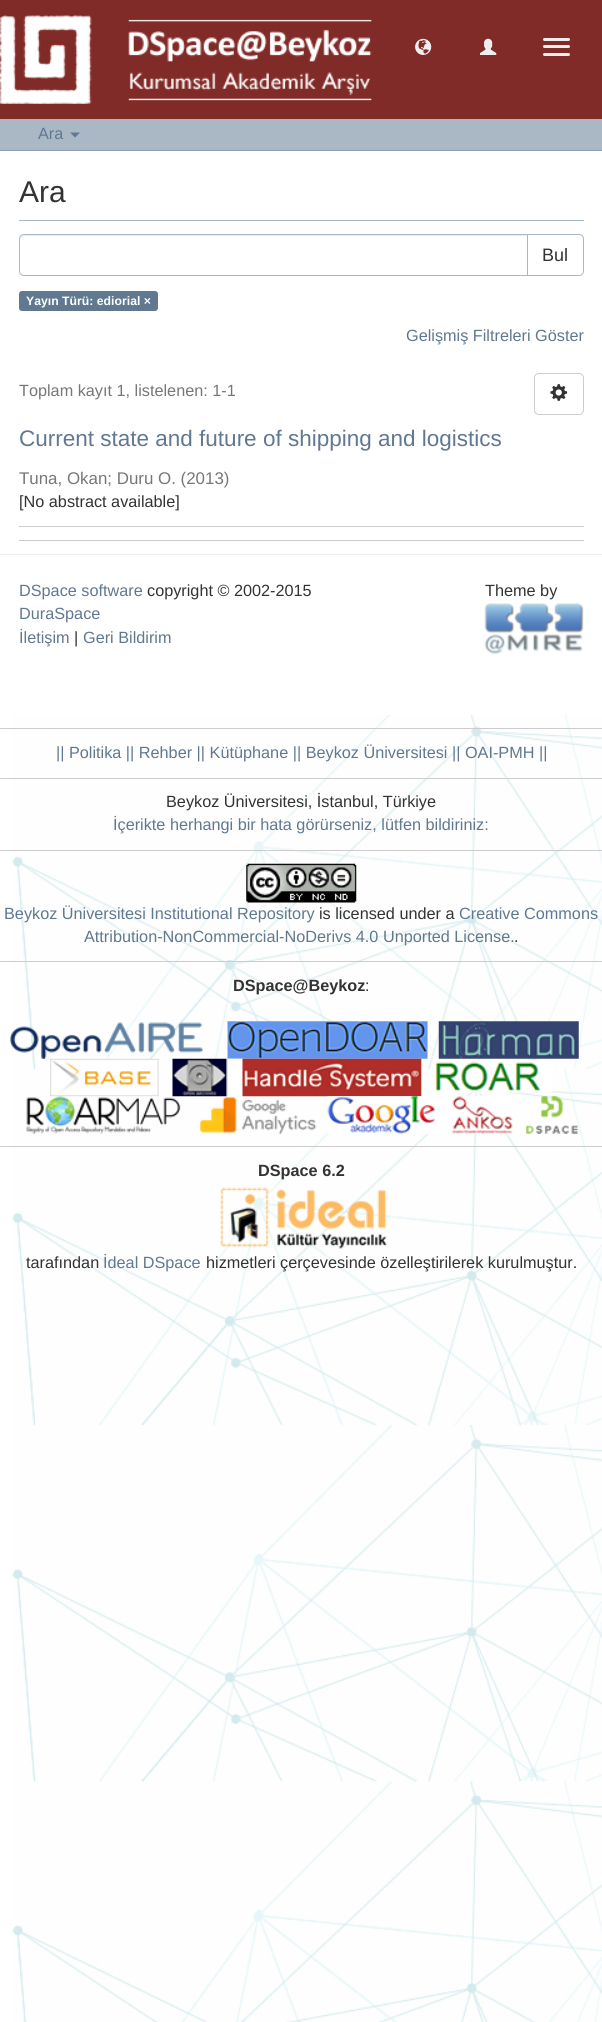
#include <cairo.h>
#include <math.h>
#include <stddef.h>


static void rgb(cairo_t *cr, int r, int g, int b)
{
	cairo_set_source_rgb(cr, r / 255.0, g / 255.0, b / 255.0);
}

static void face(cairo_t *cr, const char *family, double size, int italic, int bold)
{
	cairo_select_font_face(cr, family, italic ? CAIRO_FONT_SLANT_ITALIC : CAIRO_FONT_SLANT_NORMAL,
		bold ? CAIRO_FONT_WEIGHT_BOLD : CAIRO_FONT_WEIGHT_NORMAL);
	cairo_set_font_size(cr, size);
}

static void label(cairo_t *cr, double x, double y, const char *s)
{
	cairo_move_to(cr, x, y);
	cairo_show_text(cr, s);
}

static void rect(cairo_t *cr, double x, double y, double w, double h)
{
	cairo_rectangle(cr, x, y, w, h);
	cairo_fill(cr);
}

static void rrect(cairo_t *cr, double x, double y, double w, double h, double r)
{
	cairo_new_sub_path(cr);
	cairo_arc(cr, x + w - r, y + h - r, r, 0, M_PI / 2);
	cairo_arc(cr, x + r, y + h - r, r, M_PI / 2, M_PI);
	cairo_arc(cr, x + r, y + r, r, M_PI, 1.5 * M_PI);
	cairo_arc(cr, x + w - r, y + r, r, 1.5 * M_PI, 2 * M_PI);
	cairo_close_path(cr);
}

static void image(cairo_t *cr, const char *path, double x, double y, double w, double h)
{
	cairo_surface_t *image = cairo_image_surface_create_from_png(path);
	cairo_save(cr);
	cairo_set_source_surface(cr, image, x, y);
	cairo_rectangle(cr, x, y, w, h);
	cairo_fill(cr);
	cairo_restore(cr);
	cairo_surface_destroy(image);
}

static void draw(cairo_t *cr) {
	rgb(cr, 255, 255, 255);
	cairo_paint(cr);
	image(cr, "image0.png", 12, 715, 590, 1307);
	rgb(cr, 129, 43, 40);
	rect(cr, 0, 0, 602, 119);
	image(cr, "image1.png", 0, 15, 372, 89);
	image(cr, "image2.png", 415, 38, 17, 17);
	image(cr, "image3.png", 480, 38, 17, 17);
	rgb(cr, 238, 238, 238);
	rrect(cr, 543, 38, 27, 3, 1.5);
	cairo_fill(cr);
	rrect(cr, 543, 45, 27, 3, 1.5);
	cairo_fill(cr);
	rrect(cr, 543, 53, 27, 3, 1.5);
	cairo_fill(cr);
	rgb(cr, 170, 184, 198);
	rect(cr, 0, 119, 602, 31);
	rgb(cr, 139, 158, 178);
	rect(cr, 0, 150, 602, 1);
	face(cr, "Liberation Sans", 16.25, 0, 0);
	rgb(cr, 96, 120, 144);
	label(cr, 38, 139, "Ara");
	cairo_new_path(cr);
	cairo_move_to(cr, 70, 132.5);
	cairo_line_to(cr, 80, 132.5);
	cairo_line_to(cr, 75, 137.5);
	cairo_close_path(cr);
	cairo_fill(cr);
	rgb(cr, 170, 184, 198);
	rect(cr, 19, 220, 565, 1);
	face(cr, "Liberation Sans", 30, 0, 0);
	rgb(cr, 51, 51, 51);
	label(cr, 19, 202, "Ara");
	cairo_new_path(cr);
	cairo_move_to(cr, 526.5, 234.5);
	cairo_line_to(cr, 579, 234.5);
	cairo_curve_to(cr, 581.5, 234.5, 583.5, 236.5, 583.5, 239);
	cairo_line_to(cr, 583.5, 271);
	cairo_curve_to(cr, 583.5, 273.5, 581.5, 275.5, 579, 275.5);
	cairo_line_to(cr, 526.5, 275.5);
	cairo_close_path(cr);
	rgb(cr, 170, 184, 198);
	cairo_set_line_width(cr, 1);
	cairo_stroke(cr);
	rgb(cr, 255, 255, 255);
	cairo_new_path(cr);
	cairo_move_to(cr, 24, 234);
	cairo_line_to(cr, 528, 234);
	cairo_line_to(cr, 528, 276);
	cairo_line_to(cr, 24, 276);
	cairo_curve_to(cr, 21, 276, 19, 274, 19, 271);
	cairo_line_to(cr, 19, 239);
	cairo_curve_to(cr, 19, 236, 21, 234, 24, 234);
	cairo_close_path(cr);
	cairo_fill(cr);
	rgb(cr, 236, 236, 236);
	cairo_new_path(cr);
	cairo_move_to(cr, 24, 236);
	cairo_line_to(cr, 526, 236);
	cairo_line_to(cr, 526, 235);
	cairo_line_to(cr, 24, 235);
	cairo_curve_to(cr, 21, 235, 20, 237, 20, 240);
	cairo_curve_to(cr, 20, 238, 22, 236, 24, 236);
	cairo_close_path(cr);
	cairo_fill(cr);
	cairo_new_path(cr);
	cairo_move_to(cr, 24, 234.5);
	cairo_line_to(cr, 527.5, 234.5);
	cairo_line_to(cr, 527.5, 275.5);
	cairo_line_to(cr, 24, 275.5);
	cairo_curve_to(cr, 21.5, 275.5, 19.5, 273.5, 19.5, 271);
	cairo_line_to(cr, 19.5, 239);
	cairo_curve_to(cr, 19.5, 236.5, 21.5, 234.5, 24, 234.5);
	cairo_close_path(cr);
	rgb(cr, 170, 184, 198);
	cairo_stroke(cr);
	face(cr, "Liberation Sans", 18, 0, 0);
	rgb(cr, 51, 51, 51);
	label(cr, 542, 261, "Bul");
	rgb(cr, 96, 120, 144);
	rrect(cr, 19, 291, 139, 20, 3);
	cairo_fill(cr);
	face(cr, "Liberation Sans", 12.25, 0, 1);
	rgb(cr, 255, 255, 255);
	label(cr, 26, 305, "Yayın Türü: ediorial ×");
	face(cr, "Liberation Sans", 16.25, 0, 0);
	rgb(cr, 96, 120, 144);
	label(cr, 406, 341, "Gelişmiş Filtreleri Göster");
	rgb(cr, 119, 119, 119);
	label(cr, 19, 396, "Toplam kayıt 1, listelenen: 1-1");
	rrect(cr, 534.5, 373.5, 49, 41, 4.5);
	rgb(cr, 204, 204, 204);
	cairo_stroke(cr);
	image(cr, "image4.png", 550, 384, 18, 17);
	face(cr, "Liberation Sans", 22.5, 0, 0);
	rgb(cr, 96, 120, 144);
	label(cr, 19, 446, "Current state and future of shipping and logistics");
	face(cr, "Liberation Sans", 16.9, 0, 0);
	rgb(cr, 119, 119, 119);
	label(cr, 19, 484, "Tuna, Okan; Duru O. (2013)");
	face(cr, "Liberation Sans", 16.25, 0, 0);
	rgb(cr, 51, 51, 51);
	label(cr, 19, 507, "[No abstract available]");
	rgb(cr, 204, 204, 204);
	rect(cr, 19, 526, 565, 1);
	rect(cr, 19, 540, 565, 1);
	rgb(cr, 238, 238, 238);
	rect(cr, 0, 554, 602, 1);
	rgb(cr, 96, 120, 144);
	label(cr, 19, 596, "DSpace software");
	rgb(cr, 51, 51, 51);
	label(cr, 147, 596, "copyright © 2002-2015");
	rgb(cr, 96, 120, 144);
	label(cr, 19, 619, "DuraSpace");
	label(cr, 19, 643, "İletişim");
	rgb(cr, 51, 51, 51);
	label(cr, 74, 643, "|");
	rgb(cr, 96, 120, 144);
	label(cr, 83, 643, "Geri Bildirim");
	rgb(cr, 51, 51, 51);
	label(cr, 485, 596, "Theme by");
	image(cr, "image5.png", 484, 603, 100, 52);
	rgb(cr, 204, 204, 204);
	rect(cr, 0, 728, 602, 1);
	rgb(cr, 96, 120, 144);
	label(cr, 56, 758, "|| Politika || Rehber || Kütüphane || Beykoz Üniversitesi || OAI-PMH ||");
	rgb(cr, 204, 204, 204);
	rect(cr, 0, 778, 602, 1);
	rgb(cr, 51, 51, 51);
	label(cr, 166, 807, "Beykoz Üniversitesi, İstanbul, Türkiye");
	rgb(cr, 96, 120, 144);
	label(cr, 113, 830, "İçerikte herhangi bir hata görürseniz, lütfen bildiriniz:");
	rgb(cr, 204, 204, 204);
	rect(cr, 0, 850, 602, 1);
	image(cr, "image6.png", 246, 863, 111, 40);
	rgb(cr, 96, 120, 144);
	label(cr, 4, 919, "Beykoz Üniversitesi Institutional Repository");
	rgb(cr, 51, 51, 51);
	label(cr, 319, 919, "is licensed under a");
	rgb(cr, 96, 120, 144);
	label(cr, 459, 919, "Creative Commons");
	label(cr, 84, 942, "Attribution-NonCommercial-NoDerivs 4.0 Unported License.");
	rgb(cr, 51, 51, 51);
	label(cr, 514, 942, ".");
	rgb(cr, 204, 204, 204);
	rect(cr, 0, 961, 602, 1);
	face(cr, "Liberation Sans", 16.25, 0, 1);
	rgb(cr, 51, 51, 51);
	label(cr, 233, 991, "DSpace@Beykoz");
	face(cr, "Liberation Sans", 16.25, 0, 0);
	label(cr, 365, 991, ":");
	image(cr, "image7.png", 9, 1022, 194, 37);
	image(cr, "image8.png", 227, 1021, 201, 38);
	image(cr, "image9.png", 438, 1021, 141, 38);
	image(cr, "image10.png", 50, 1058, 109, 39);
	image(cr, "image11.png", 172, 1058, 71, 39);
	image(cr, "image12.png", 242, 1058, 180, 39);
	image(cr, "image13.png", 432, 1060, 121, 33);
	image(cr, "image14.png", 26, 1096, 155, 38);
	image(cr, "image15.png", 199, 1096, 118, 38);
	image(cr, "image16.png", 327, 1096, 122, 38);
	image(cr, "image17.png", 449, 1096, 64, 38);
	image(cr, "image18.png", 526, 1096, 52, 38);
	rgb(cr, 204, 204, 204);
	rect(cr, 0, 1146, 602, 1);
	face(cr, "Liberation Sans", 16.25, 0, 1);
	rgb(cr, 51, 51, 51);
	label(cr, 258, 1176, "DSpace 6.2");
	image(cr, "image19.png", 220, 1187, 167, 62);
	face(cr, "Liberation Sans", 16.25, 0, 0);
	label(cr, 26, 1268, "tarafından");
	rgb(cr, 96, 120, 144);
	label(cr, 103, 1268, "İdeal DSpace");
	rgb(cr, 51, 51, 51);
	label(cr, 206, 1268, "hizmetleri çerçevesinde özelleştirilerek kurulmuştur.");
}

int main(void) {
	cairo_surface_t *surface = cairo_image_surface_create(CAIRO_FORMAT_RGB24, 602, 2022);
	cairo_t *cr = cairo_create(surface);
	cairo_font_options_t *options = cairo_font_options_create();
	cairo_font_options_set_hint_metrics(options, CAIRO_HINT_METRICS_OFF);
	cairo_font_options_set_hint_style(options, CAIRO_HINT_STYLE_NONE);
	cairo_set_font_options(cr, options);
	cairo_set_miter_limit(cr, 4);
	draw(cr);
	cairo_surface_write_to_png(surface, "render.png");
	cairo_font_options_destroy(options);
	cairo_destroy(cr);
	cairo_surface_destroy(surface);
	return 0;
}
